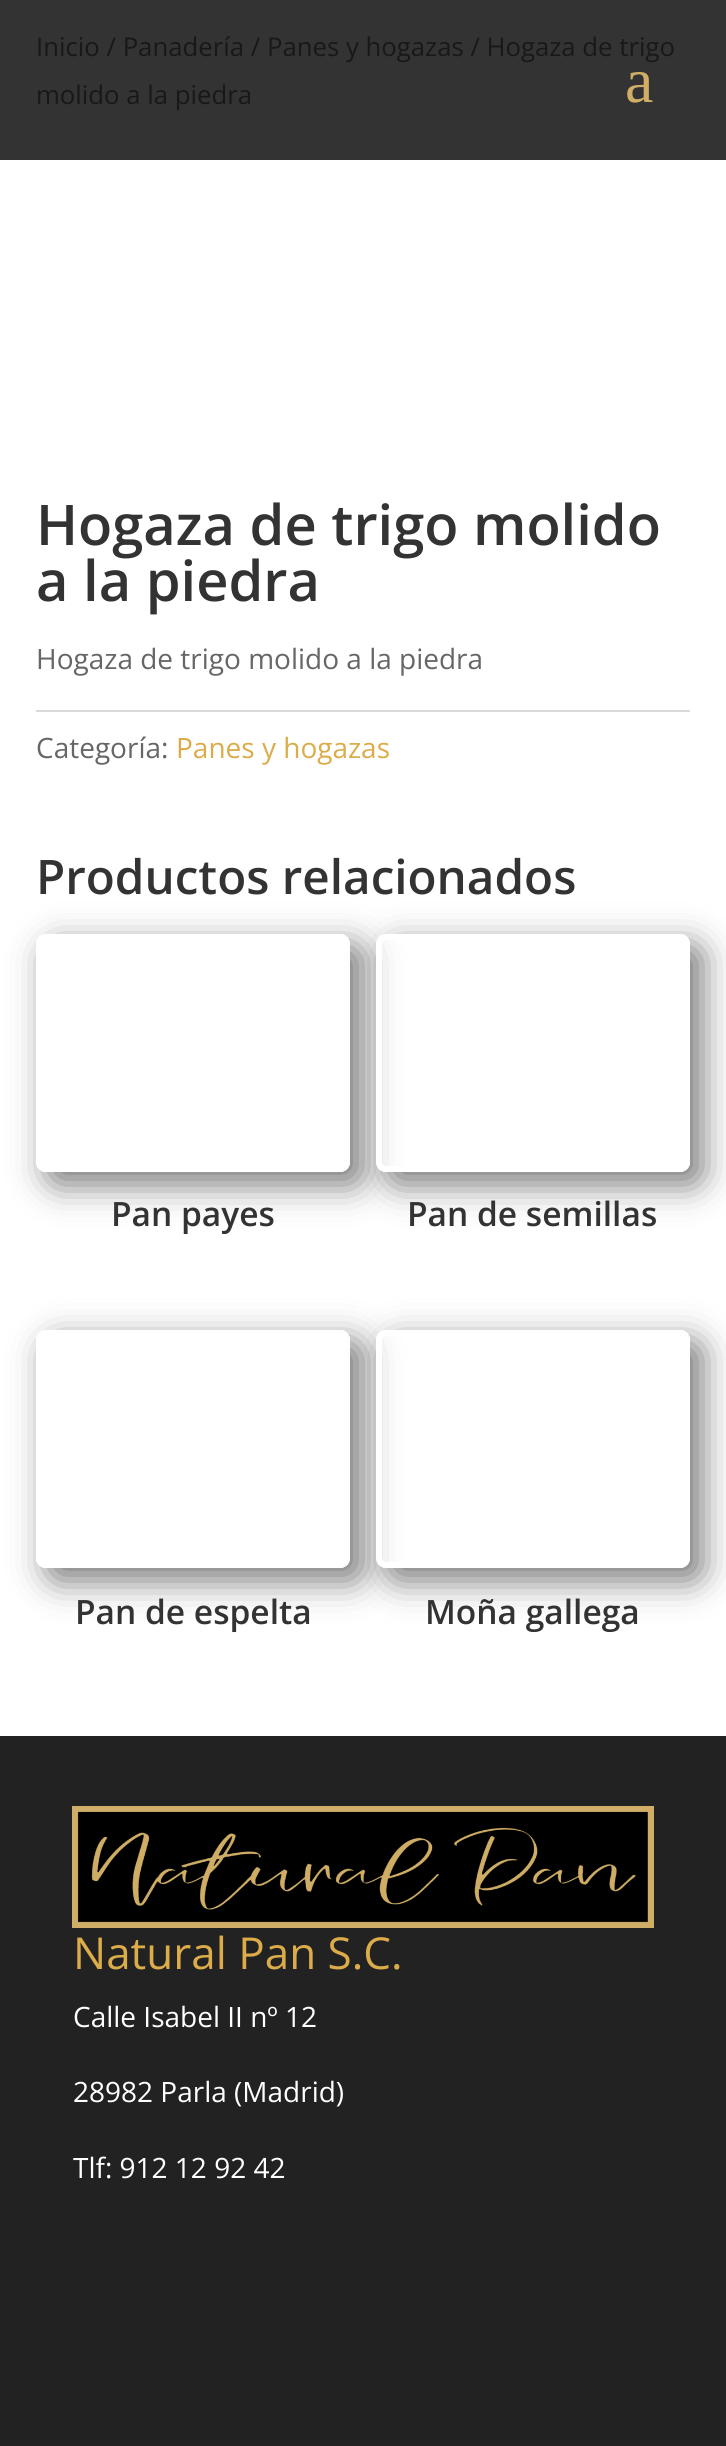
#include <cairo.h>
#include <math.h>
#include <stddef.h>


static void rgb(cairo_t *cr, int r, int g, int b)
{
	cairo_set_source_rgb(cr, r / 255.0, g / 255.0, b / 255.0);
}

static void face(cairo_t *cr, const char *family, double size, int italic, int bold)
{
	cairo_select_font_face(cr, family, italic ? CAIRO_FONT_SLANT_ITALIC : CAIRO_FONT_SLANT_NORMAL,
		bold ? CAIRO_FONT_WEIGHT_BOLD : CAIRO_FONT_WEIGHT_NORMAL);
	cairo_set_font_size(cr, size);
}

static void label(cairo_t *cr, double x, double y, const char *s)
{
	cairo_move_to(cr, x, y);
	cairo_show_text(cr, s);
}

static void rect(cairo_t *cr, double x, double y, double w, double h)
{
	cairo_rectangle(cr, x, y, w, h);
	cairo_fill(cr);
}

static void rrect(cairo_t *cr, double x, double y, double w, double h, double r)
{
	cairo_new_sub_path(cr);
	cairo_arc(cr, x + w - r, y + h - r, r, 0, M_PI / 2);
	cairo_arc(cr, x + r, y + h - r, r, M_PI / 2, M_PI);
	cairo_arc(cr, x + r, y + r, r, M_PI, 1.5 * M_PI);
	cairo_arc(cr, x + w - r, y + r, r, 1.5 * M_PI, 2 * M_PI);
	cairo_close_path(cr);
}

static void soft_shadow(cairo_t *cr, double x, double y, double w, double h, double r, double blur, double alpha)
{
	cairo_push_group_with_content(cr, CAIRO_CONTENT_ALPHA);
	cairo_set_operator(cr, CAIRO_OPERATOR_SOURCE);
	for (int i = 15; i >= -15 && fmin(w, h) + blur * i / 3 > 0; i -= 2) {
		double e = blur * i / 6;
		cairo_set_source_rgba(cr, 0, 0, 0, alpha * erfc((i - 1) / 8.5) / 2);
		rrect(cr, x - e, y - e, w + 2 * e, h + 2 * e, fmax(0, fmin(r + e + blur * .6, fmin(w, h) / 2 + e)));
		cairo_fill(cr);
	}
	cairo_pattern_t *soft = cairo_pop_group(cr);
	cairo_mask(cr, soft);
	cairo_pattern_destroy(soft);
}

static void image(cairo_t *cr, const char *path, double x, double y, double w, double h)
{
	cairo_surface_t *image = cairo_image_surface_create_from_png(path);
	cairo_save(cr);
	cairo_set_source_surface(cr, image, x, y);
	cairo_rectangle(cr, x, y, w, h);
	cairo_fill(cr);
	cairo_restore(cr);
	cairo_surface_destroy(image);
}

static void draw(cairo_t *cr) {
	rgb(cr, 255, 255, 255);
	cairo_paint(cr);
	rgb(cr, 51, 51, 51);
	rect(cr, 0, 0, 726, 160);
	face(cr, "Open Sans", 25.75, 0, 0);
	rgb(cr, 24, 24, 24);
	label(cr, 36, 56, "Inicio / Panadería / Panes y hogazas / Hogaza de trigo");
	label(cr, 36, 104, "molido a la piedra");
	face(cr, "Open Sans SemiBold", 56, 0, 0);
	rgb(cr, 51, 51, 51);
	label(cr, 36, 545, "Hogaza de trigo molido");
	label(cr, 36, 601, "a la piedra");
	face(cr, "Open Sans", 28, 0, 0);
	rgb(cr, 102, 102, 102);
	label(cr, 36, 669, "Hogaza de trigo molido a la piedra");
	rgb(cr, 218, 218, 218);
	rect(cr, 36, 710, 654, 2);
	rgb(cr, 102, 102, 102);
	label(cr, 36, 758, "Categoría:");
	rgb(cr, 219, 172, 73);
	label(cr, 176, 758, "Panes y hogazas");
	face(cr, "Open Sans SemiBold", 47.6, 0, 0);
	rgb(cr, 51, 51, 51);
	label(cr, 36, 894, "Productos relacionados");
	cairo_save(cr);
	cairo_set_fill_rule(cr, CAIRO_FILL_RULE_EVEN_ODD);
	cairo_new_path(cr);
	cairo_move_to(cr, 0, 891);
	cairo_line_to(cr, 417, 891);
	cairo_line_to(cr, 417, 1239);
	cairo_line_to(cr, 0, 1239);
	cairo_close_path(cr);
	cairo_move_to(cr, 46, 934);
	cairo_line_to(cr, 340, 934);
	cairo_curve_to(cr, 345.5, 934, 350, 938.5, 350, 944);
	cairo_line_to(cr, 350, 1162);
	cairo_curve_to(cr, 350, 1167.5, 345.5, 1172, 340, 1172);
	cairo_line_to(cr, 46, 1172);
	cairo_curve_to(cr, 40.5, 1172, 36, 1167.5, 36, 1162);
	cairo_line_to(cr, 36, 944);
	cairo_curve_to(cr, 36, 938.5, 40.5, 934, 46, 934);
	cairo_close_path(cr);
	cairo_clip(cr);
	rgb(cr, 118, 118, 118);
	soft_shadow(cr, 48, 946, 314, 238, 10, 18, 1);
	cairo_restore(cr);
	rrect(cr, 39, 937, 308, 232, 7);
	rgb(cr, 255, 255, 255);
	cairo_set_line_width(cr, 6);
	cairo_stroke(cr);
	face(cr, "Open Sans SemiBold", 33.5, 0, 0);
	rgb(cr, 51, 51, 51);
	label(cr, 111, 1226, "Pan payes");
	cairo_save(cr);
	cairo_set_fill_rule(cr, CAIRO_FILL_RULE_EVEN_ODD);
	cairo_new_path(cr);
	cairo_move_to(cr, 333, 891);
	cairo_line_to(cr, 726, 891);
	cairo_line_to(cr, 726, 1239);
	cairo_line_to(cr, 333, 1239);
	cairo_close_path(cr);
	cairo_move_to(cr, 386, 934);
	cairo_line_to(cr, 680, 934);
	cairo_curve_to(cr, 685.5, 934, 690, 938.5, 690, 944);
	cairo_line_to(cr, 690, 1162);
	cairo_curve_to(cr, 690, 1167.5, 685.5, 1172, 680, 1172);
	cairo_line_to(cr, 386, 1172);
	cairo_curve_to(cr, 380.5, 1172, 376, 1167.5, 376, 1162);
	cairo_line_to(cr, 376, 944);
	cairo_curve_to(cr, 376, 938.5, 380.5, 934, 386, 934);
	cairo_close_path(cr);
	cairo_clip(cr);
	rgb(cr, 118, 118, 118);
	soft_shadow(cr, 388, 946, 314, 238, 10, 18, 1);
	cairo_restore(cr);
	rrect(cr, 379, 937, 308, 232, 7);
	rgb(cr, 255, 255, 255);
	cairo_stroke(cr);
	rgb(cr, 51, 51, 51);
	label(cr, 407, 1226, "Pan de semillas");
	cairo_save(cr);
	cairo_set_fill_rule(cr, CAIRO_FILL_RULE_EVEN_ODD);
	cairo_new_path(cr);
	cairo_move_to(cr, 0, 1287);
	cairo_line_to(cr, 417, 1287);
	cairo_line_to(cr, 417, 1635);
	cairo_line_to(cr, 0, 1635);
	cairo_close_path(cr);
	cairo_move_to(cr, 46, 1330);
	cairo_line_to(cr, 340, 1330);
	cairo_curve_to(cr, 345.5, 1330, 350, 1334.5, 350, 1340);
	cairo_line_to(cr, 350, 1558);
	cairo_curve_to(cr, 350, 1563.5, 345.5, 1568, 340, 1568);
	cairo_line_to(cr, 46, 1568);
	cairo_curve_to(cr, 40.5, 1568, 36, 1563.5, 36, 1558);
	cairo_line_to(cr, 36, 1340);
	cairo_curve_to(cr, 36, 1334.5, 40.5, 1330, 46, 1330);
	cairo_close_path(cr);
	cairo_clip(cr);
	rgb(cr, 118, 118, 118);
	soft_shadow(cr, 48, 1342, 314, 238, 10, 18, 1);
	cairo_restore(cr);
	rrect(cr, 39, 1333, 308, 232, 7);
	rgb(cr, 255, 255, 255);
	cairo_stroke(cr);
	rgb(cr, 51, 51, 51);
	label(cr, 75, 1624, "Pan de espelta");
	cairo_save(cr);
	cairo_set_fill_rule(cr, CAIRO_FILL_RULE_EVEN_ODD);
	cairo_new_path(cr);
	cairo_move_to(cr, 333, 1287);
	cairo_line_to(cr, 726, 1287);
	cairo_line_to(cr, 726, 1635);
	cairo_line_to(cr, 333, 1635);
	cairo_close_path(cr);
	cairo_move_to(cr, 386, 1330);
	cairo_line_to(cr, 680, 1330);
	cairo_curve_to(cr, 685.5, 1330, 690, 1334.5, 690, 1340);
	cairo_line_to(cr, 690, 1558);
	cairo_curve_to(cr, 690, 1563.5, 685.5, 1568, 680, 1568);
	cairo_line_to(cr, 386, 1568);
	cairo_curve_to(cr, 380.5, 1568, 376, 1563.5, 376, 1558);
	cairo_line_to(cr, 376, 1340);
	cairo_curve_to(cr, 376, 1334.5, 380.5, 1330, 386, 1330);
	cairo_close_path(cr);
	cairo_clip(cr);
	rgb(cr, 118, 118, 118);
	soft_shadow(cr, 388, 1342, 314, 238, 10, 18, 1);
	cairo_restore(cr);
	rrect(cr, 379, 1333, 308, 232, 7);
	rgb(cr, 255, 255, 255);
	cairo_stroke(cr);
	rgb(cr, 51, 51, 51);
	label(cr, 425, 1624, "Moña gallega");
	rgb(cr, 34, 34, 34);
	rect(cr, 0, 1736, 726, 710);
	image(cr, "image0.png", 72, 1806, 582, 122);
	face(cr, "Open Sans", 44, 0, 0);
	rgb(cr, 219, 172, 73);
	label(cr, 73, 1969, "Natural Pan S.C.");
	face(cr, "Open Sans", 28, 0, 0);
	rgb(cr, 255, 255, 255);
	label(cr, 73, 2027, "Calle Isabel II nº 12");
	label(cr, 73, 2102, "28982 Parla (Madrid)");
	label(cr, 73, 2178, "Tlf: 912 12 92 42");
	face(cr, "Liberation Serif", 64, 0, 0);
	rgb(cr, 208, 174, 102);
	label(cr, 625, 102, "a");
}

int main(void) {
	cairo_surface_t *surface = cairo_image_surface_create(CAIRO_FORMAT_RGB24, 726, 2446);
	cairo_t *cr = cairo_create(surface);
	cairo_font_options_t *options = cairo_font_options_create();
	cairo_font_options_set_hint_metrics(options, CAIRO_HINT_METRICS_OFF);
	cairo_font_options_set_hint_style(options, CAIRO_HINT_STYLE_NONE);
	cairo_set_font_options(cr, options);
	cairo_set_miter_limit(cr, 4);
	draw(cr);
	cairo_surface_write_to_png(surface, "render.png");
	cairo_font_options_destroy(options);
	cairo_destroy(cr);
	cairo_surface_destroy(surface);
	return 0;
}
